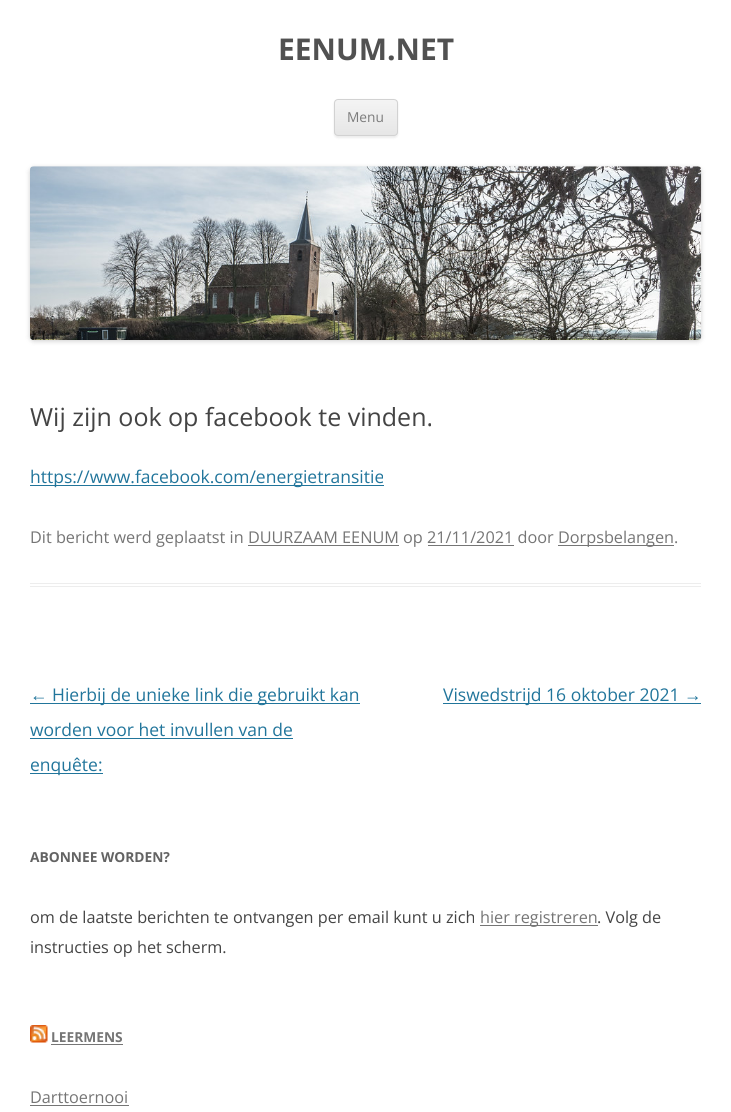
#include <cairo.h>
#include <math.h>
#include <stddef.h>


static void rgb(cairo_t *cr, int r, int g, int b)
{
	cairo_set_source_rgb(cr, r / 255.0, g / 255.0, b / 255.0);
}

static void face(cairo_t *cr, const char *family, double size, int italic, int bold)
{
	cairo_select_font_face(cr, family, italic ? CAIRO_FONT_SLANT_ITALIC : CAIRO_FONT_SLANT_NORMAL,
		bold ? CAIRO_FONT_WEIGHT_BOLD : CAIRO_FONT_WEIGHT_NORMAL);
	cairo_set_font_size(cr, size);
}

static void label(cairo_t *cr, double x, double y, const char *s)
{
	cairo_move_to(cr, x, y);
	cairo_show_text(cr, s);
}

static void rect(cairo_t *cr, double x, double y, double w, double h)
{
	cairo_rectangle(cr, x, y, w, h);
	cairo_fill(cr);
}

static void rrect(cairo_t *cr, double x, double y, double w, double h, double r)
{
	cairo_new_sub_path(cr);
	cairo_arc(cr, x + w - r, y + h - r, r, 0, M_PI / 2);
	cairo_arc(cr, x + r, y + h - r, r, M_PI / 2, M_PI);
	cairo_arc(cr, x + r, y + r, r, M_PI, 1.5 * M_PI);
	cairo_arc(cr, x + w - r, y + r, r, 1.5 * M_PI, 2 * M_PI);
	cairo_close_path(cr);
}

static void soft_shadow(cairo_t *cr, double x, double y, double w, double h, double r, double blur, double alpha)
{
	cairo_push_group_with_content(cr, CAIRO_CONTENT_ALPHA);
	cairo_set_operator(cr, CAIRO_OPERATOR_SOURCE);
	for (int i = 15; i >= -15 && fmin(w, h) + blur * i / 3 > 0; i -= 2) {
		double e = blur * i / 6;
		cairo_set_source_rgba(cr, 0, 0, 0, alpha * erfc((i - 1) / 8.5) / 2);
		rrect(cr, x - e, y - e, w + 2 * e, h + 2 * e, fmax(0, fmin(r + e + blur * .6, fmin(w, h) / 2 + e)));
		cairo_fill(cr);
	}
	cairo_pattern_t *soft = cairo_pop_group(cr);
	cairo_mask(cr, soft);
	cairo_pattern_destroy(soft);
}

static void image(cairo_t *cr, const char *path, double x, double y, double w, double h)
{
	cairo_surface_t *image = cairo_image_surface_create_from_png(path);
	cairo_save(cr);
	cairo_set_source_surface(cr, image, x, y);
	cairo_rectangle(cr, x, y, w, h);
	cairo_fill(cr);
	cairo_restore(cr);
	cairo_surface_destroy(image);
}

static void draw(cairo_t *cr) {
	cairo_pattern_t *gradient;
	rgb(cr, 255, 255, 255);
	cairo_paint(cr);
	face(cr, "Open Sans", 30, 0, 1);
	rgb(cr, 81, 81, 81);
	label(cr, 278, 60, "EENUM.NET");
	rgb(cr, 64, 64, 64);
	soft_shadow(cr, 334, 100, 64, 38, 4, 1, 0.1);
	cairo_save(cr);
	rrect(cr, 334, 99, 64, 37, 4);
	cairo_clip(cr);
	gradient = cairo_pattern_create_linear(366, 100, 366, 135);
	cairo_pattern_add_color_stop_rgba(gradient, 0, 0.957, 0.957, 0.957, 1);
	cairo_pattern_add_color_stop_rgba(gradient, 1, 0.902, 0.902, 0.902, 1);
	cairo_set_source(cr, gradient);
	cairo_pattern_destroy(gradient);
	rect(cr, 334, 100, 64, 35);
	cairo_restore(cr);
	rrect(cr, 334.5, 99.5, 63, 36, 3.5);
	rgb(cr, 210, 210, 210);
	cairo_set_line_width(cr, 1);
	cairo_stroke(cr);
	face(cr, "Open Sans", 13.75, 0, 0);
	rgb(cr, 124, 124, 124);
	label(cr, 347, 122, "Menu");
	rgb(cr, 0, 0, 0);
	soft_shadow(cr, 30, 168, 671, 173, 4, 2.5, 0.2);
	image(cr, "image0.png", 30, 166, 672, 174);
	rgb(cr, 237, 237, 237);
	rect(cr, 30, 583, 671, 1);
	rect(cr, 30, 586, 671, 1);
	face(cr, "Open Sans", 25, 0, 0);
	rgb(cr, 68, 68, 68);
	label(cr, 30, 426, "Wij zijn ook op facebook te vinden.");
	rgb(cr, 33, 117, 155);
	rect(cr, 30, 485, 354, 1);
	face(cr, "Open Sans", 17.5, 0, 0);
	label(cr, 30, 483, "https://www.facebook.com/energietransitie");
	face(cr, "Open Sans", 16.25, 0, 0);
	rgb(cr, 117, 117, 117);
	label(cr, 30, 543, "Dit bericht werd geplaatst in DUURZAAM EENUM op 21/11/2021 door");
	rect(cr, 558, 545, 116, 1);
	label(cr, 558, 543, "Dorpsbelangen.");
	rect(cr, 248, 545, 151, 1);
	rect(cr, 428, 545, 86, 1);
	face(cr, "Liberation Sans", 17.5, 0, 0);
	rgb(cr, 33, 117, 155);
	label(cr, 30, 701, "←");
	rect(cr, 30, 703, 330, 1);
	face(cr, "Open Sans", 17.5, 0, 0);
	label(cr, 52, 701, "Hierbij de unieke link die gebruikt kan");
	label(cr, 30, 736, "worden voor het invullen van de");
	rect(cr, 30, 738, 263, 1);
	rect(cr, 30, 773, 73, 1);
	label(cr, 30, 771, "enquête:");
	rect(cr, 443, 703, 258, 1);
	label(cr, 443, 701, "Viswedstrijd 16 oktober 2021");
	face(cr, "Liberation Sans", 17.5, 0, 0);
	label(cr, 684, 701, "→");
	face(cr, "Open Sans", 13.75, 0, 1);
	rgb(cr, 99, 99, 99);
	label(cr, 30, 862, "ABONNEE WORDEN?");
	face(cr, "Open Sans", 16.25, 0, 0);
	rgb(cr, 68, 68, 68);
	label(cr, 30, 923, "om de laatste berichten te ontvangen per email kunt u zich");
	rgb(cr, 117, 117, 117);
	rect(cr, 480, 925, 118, 1);
	label(cr, 480, 923, "hier registreren");
	rgb(cr, 68, 68, 68);
	label(cr, 597, 923, ". Volg de");
	label(cr, 30, 953, "instructies op het scherm.");
	image(cr, "image1.png", 30, 1025, 18, 18);
	face(cr, "Open Sans", 13.75, 0, 1);
	rgb(cr, 117, 117, 117);
	label(cr, 51, 1042, "LEERMENS");
	rect(cr, 51, 1044, 72, 1);
	face(cr, "Open Sans", 16.25, 0, 0);
	label(cr, 30, 1103, "Darttoernooi");
	rect(cr, 30, 1105, 99, 1);
}

int main(void) {
	cairo_surface_t *surface = cairo_image_surface_create(CAIRO_FORMAT_RGB24, 731, 1112);
	cairo_t *cr = cairo_create(surface);
	cairo_font_options_t *options = cairo_font_options_create();
	cairo_font_options_set_hint_metrics(options, CAIRO_HINT_METRICS_OFF);
	cairo_font_options_set_hint_style(options, CAIRO_HINT_STYLE_NONE);
	cairo_set_font_options(cr, options);
	cairo_set_miter_limit(cr, 4);
	draw(cr);
	cairo_surface_write_to_png(surface, "render.png");
	cairo_font_options_destroy(options);
	cairo_destroy(cr);
	cairo_surface_destroy(surface);
	return 0;
}
